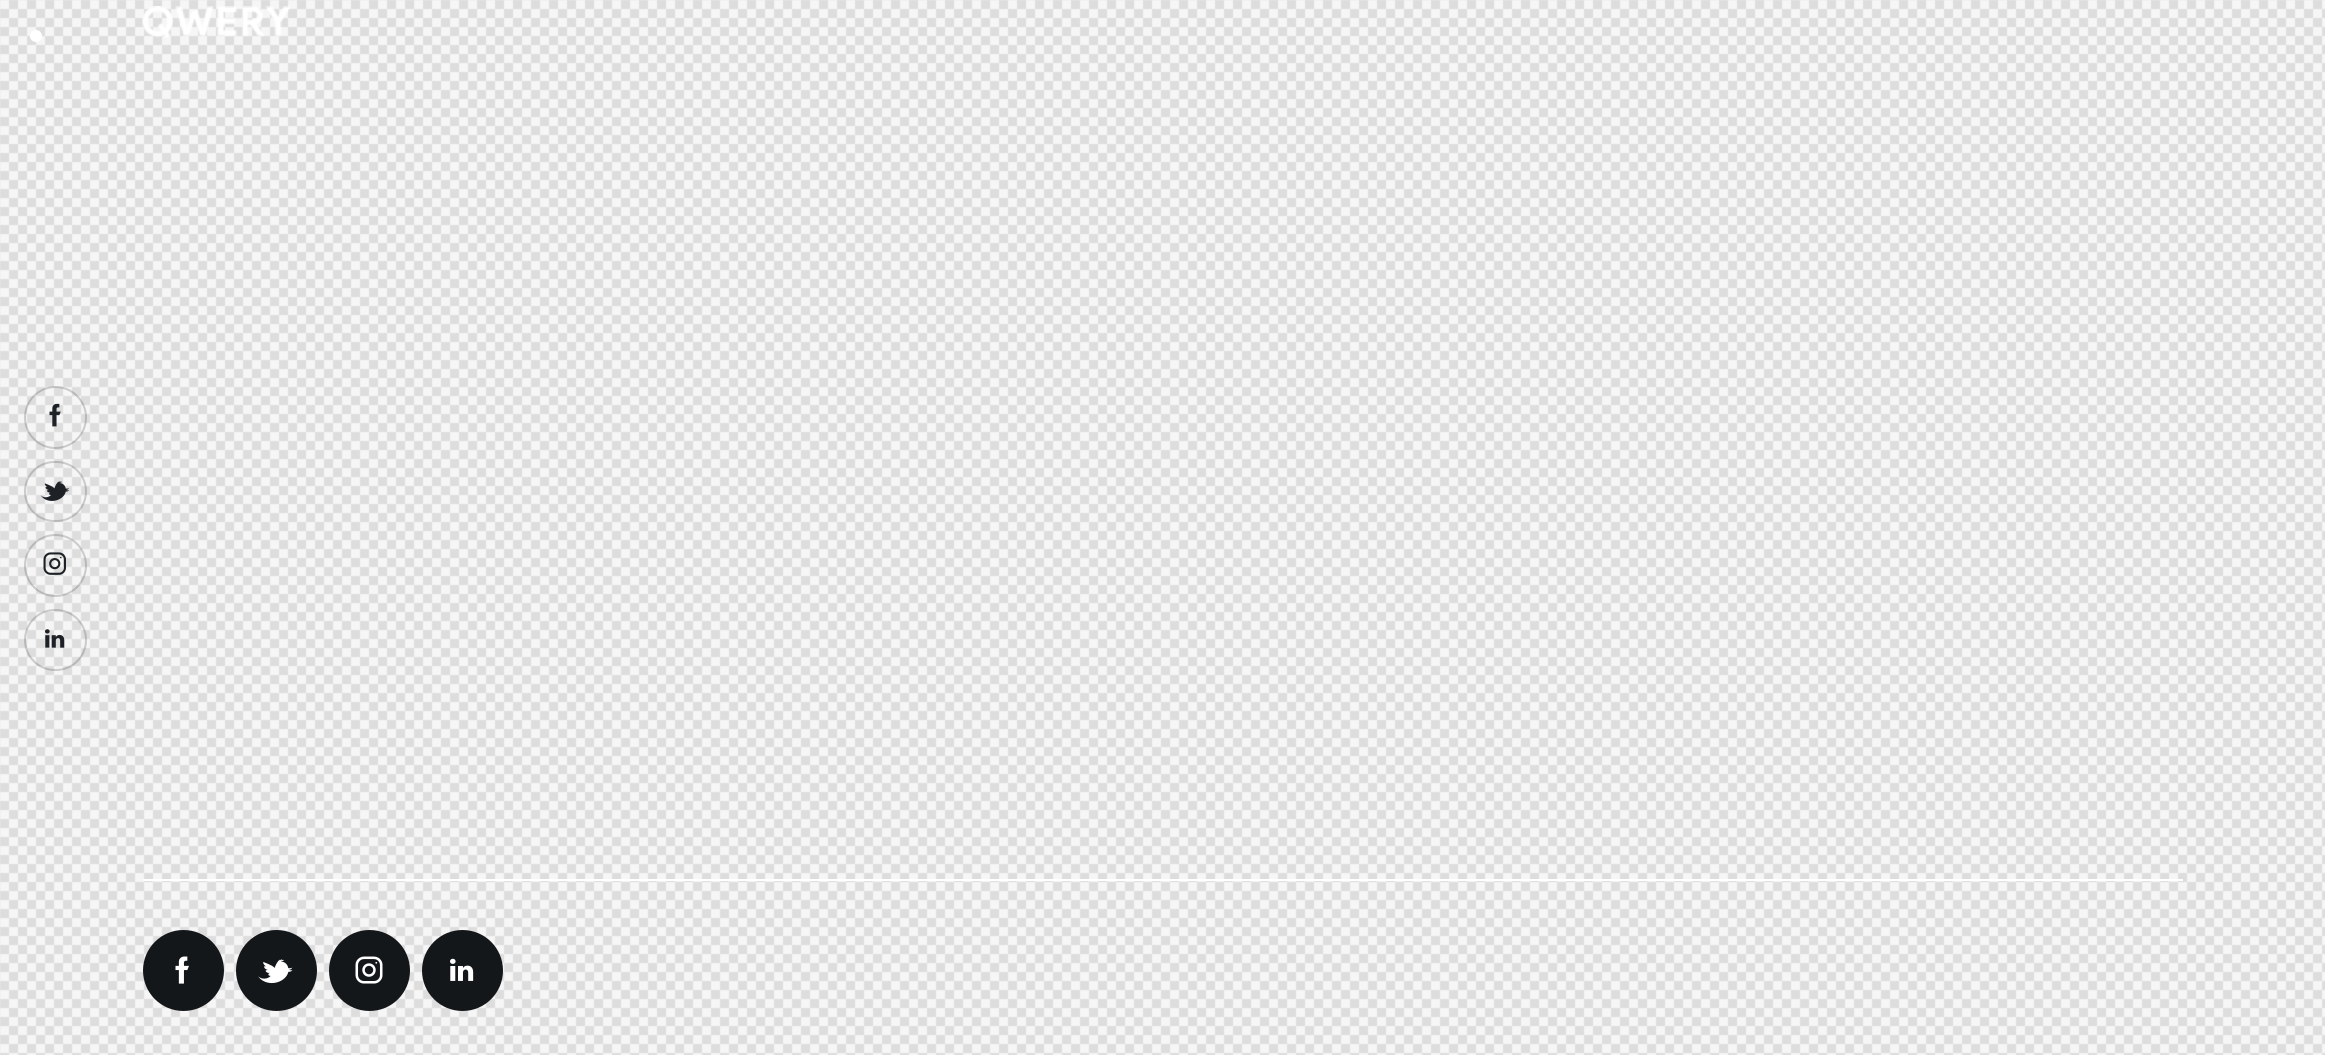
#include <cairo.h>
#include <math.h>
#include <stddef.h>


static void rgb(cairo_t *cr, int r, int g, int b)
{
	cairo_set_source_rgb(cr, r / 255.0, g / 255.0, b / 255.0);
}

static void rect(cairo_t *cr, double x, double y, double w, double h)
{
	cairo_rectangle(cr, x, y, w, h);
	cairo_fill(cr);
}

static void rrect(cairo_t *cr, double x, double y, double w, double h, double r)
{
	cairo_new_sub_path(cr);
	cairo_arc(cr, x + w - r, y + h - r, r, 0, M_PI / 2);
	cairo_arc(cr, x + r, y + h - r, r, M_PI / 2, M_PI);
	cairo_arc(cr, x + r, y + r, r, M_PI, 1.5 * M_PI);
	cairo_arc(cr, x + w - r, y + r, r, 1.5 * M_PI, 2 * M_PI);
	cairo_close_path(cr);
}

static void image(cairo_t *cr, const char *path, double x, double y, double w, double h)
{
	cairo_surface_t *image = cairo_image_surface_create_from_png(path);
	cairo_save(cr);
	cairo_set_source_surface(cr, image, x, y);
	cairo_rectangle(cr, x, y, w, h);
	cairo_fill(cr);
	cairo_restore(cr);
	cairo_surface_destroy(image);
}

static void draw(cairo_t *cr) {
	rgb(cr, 255, 255, 255);
	cairo_paint(cr);
	image(cr, "image0.png", 0, 0, 2325, 1055);
	rgb(cr, 255, 255, 255);
	cairo_arc(cr, 36, 36, 6, 0, 2 * M_PI);
	cairo_fill(cr);
	image(cr, "image1.png", 142, 6, 148, 32);
	rect(cr, 143, 879, 2040, 2);
	rgb(cr, 20, 23, 26);
	cairo_arc(cr, 183.5, 970.5, 40.5, 0, 2 * M_PI);
	cairo_fill(cr);
	image(cr, "image2.png", 175, 956, 14, 28);
	cairo_arc(cr, 276.5, 970.5, 40.5, 0, 2 * M_PI);
	cairo_fill(cr);
	image(cr, "image3.png", 258, 959, 35, 25);
	cairo_arc(cr, 369.5, 970.5, 40.5, 0, 2 * M_PI);
	cairo_fill(cr);
	image(cr, "image4.png", 355, 956, 28, 28);
	cairo_arc(cr, 462.5, 970.5, 40.5, 0, 2 * M_PI);
	cairo_fill(cr);
	image(cr, "image5.png", 450, 958, 24, 23);
	cairo_arc(cr, 55.5, 417.5, 30.5, 0, 2 * M_PI);
	cairo_set_source_rgba(cr, 0.118, 0.133, 0.149, 0.2);
	cairo_stroke(cr);
	image(cr, "image6.png", 49, 403, 12, 24);
	rrect(cr, 25, 462, 61, 59, 29.5);
	cairo_stroke(cr);
	image(cr, "image7.png", 40, 481, 30, 20);
	cairo_arc(cr, 55.5, 565.5, 30.5, 0, 2 * M_PI);
	cairo_stroke(cr);
	image(cr, "image8.png", 43, 552, 23, 23);
	rrect(cr, 25, 610, 61, 60, 30);
	cairo_stroke(cr);
	image(cr, "image9.png", 45, 629, 20, 19);
}

int main(void) {
	cairo_surface_t *surface = cairo_image_surface_create(CAIRO_FORMAT_RGB24, 2325, 1055);
	cairo_t *cr = cairo_create(surface);
	cairo_font_options_t *options = cairo_font_options_create();
	cairo_font_options_set_hint_metrics(options, CAIRO_HINT_METRICS_OFF);
	cairo_font_options_set_hint_style(options, CAIRO_HINT_STYLE_NONE);
	cairo_set_font_options(cr, options);
	cairo_set_miter_limit(cr, 4);
	draw(cr);
	cairo_surface_write_to_png(surface, "render.png");
	cairo_font_options_destroy(options);
	cairo_destroy(cr);
	cairo_surface_destroy(surface);
	return 0;
}
